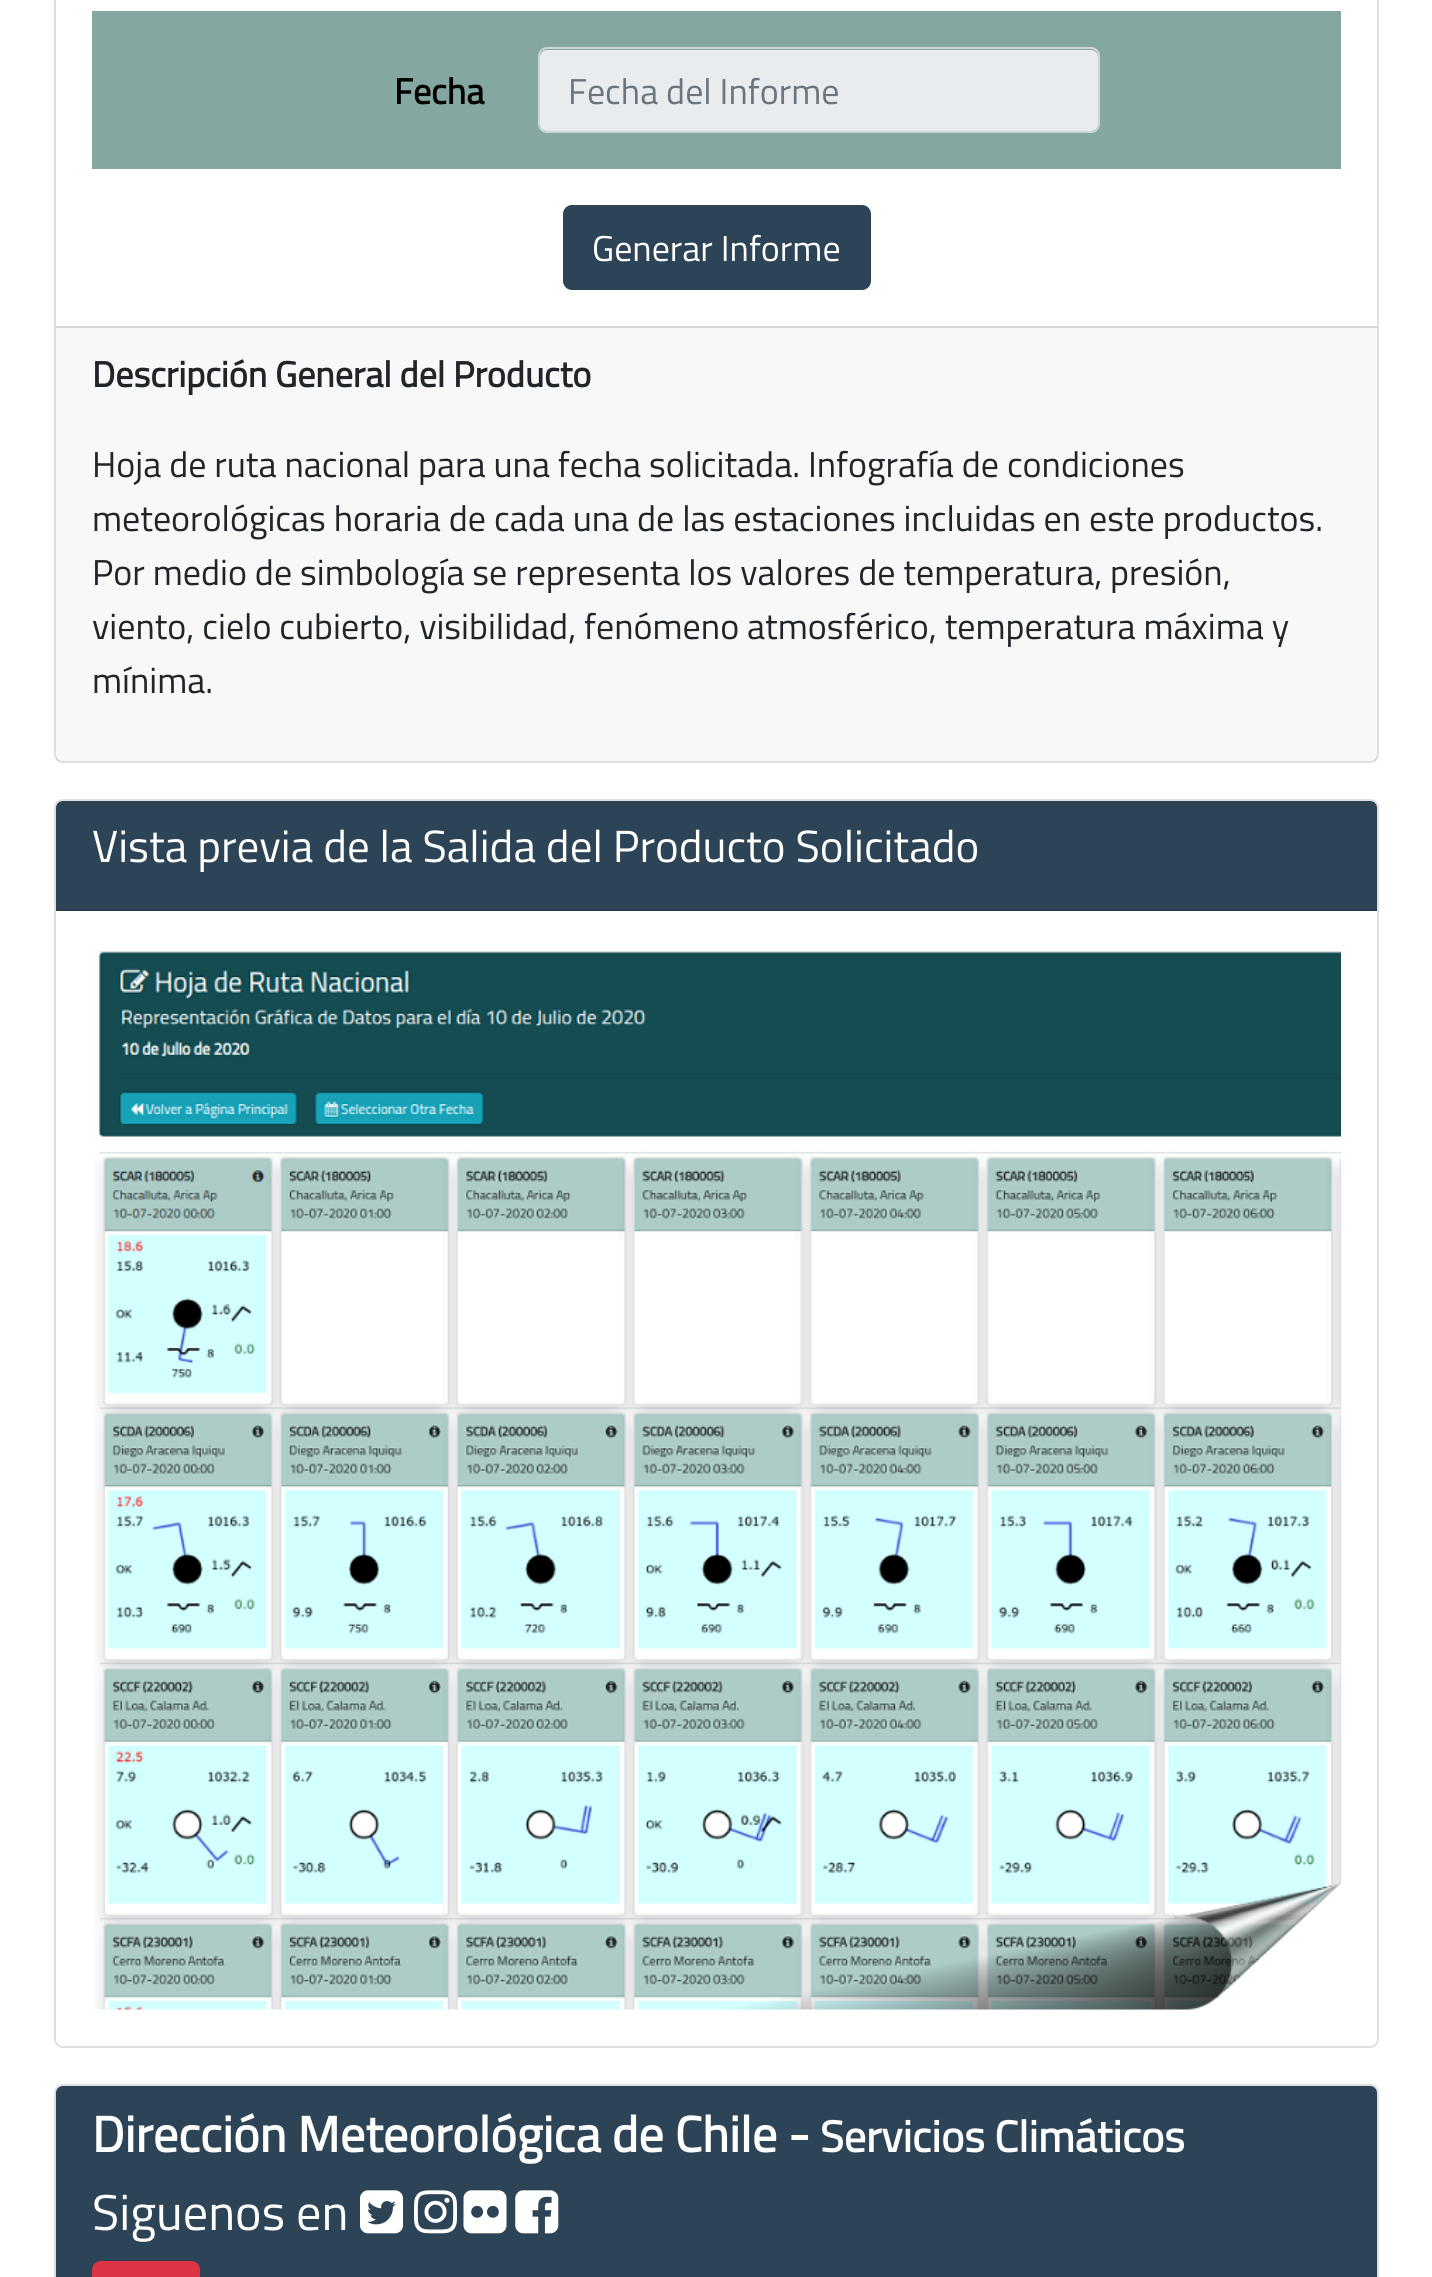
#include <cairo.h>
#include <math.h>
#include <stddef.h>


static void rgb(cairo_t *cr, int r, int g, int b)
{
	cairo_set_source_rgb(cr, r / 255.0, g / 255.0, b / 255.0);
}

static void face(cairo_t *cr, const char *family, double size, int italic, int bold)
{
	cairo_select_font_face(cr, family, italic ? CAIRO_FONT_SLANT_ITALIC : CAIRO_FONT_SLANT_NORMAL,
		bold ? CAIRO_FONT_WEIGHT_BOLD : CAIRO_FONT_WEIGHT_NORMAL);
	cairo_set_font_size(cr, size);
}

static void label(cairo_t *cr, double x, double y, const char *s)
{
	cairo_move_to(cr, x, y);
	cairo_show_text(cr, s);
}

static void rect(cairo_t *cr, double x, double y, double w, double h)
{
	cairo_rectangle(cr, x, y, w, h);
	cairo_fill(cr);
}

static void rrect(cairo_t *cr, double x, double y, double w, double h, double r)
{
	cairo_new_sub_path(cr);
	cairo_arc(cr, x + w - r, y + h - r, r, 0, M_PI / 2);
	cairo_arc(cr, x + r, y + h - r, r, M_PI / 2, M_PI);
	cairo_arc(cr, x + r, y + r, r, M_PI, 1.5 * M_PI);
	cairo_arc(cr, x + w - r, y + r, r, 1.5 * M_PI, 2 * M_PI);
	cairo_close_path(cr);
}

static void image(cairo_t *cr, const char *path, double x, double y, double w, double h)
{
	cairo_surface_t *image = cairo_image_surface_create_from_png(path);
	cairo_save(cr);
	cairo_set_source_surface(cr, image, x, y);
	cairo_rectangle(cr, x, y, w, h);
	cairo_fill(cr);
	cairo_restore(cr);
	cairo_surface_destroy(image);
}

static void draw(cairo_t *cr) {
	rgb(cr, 255, 255, 255);
	cairo_paint(cr);
	rrect(cr, 55, -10, 1323, 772, 8);
	rgb(cr, 223, 223, 223);
	cairo_stroke(cr);
	rgb(cr, 132, 167, 161);
	rect(cr, 92, 11, 1249, 158);
	face(cr, "Titillium Web", 36, 0, 1);
	rgb(cr, 0, 0, 0);
	label(cr, 394, 104, "Fecha");
	rgb(cr, 233, 236, 239);
	rrect(cr, 540, 50, 558, 81, 7);
	cairo_fill(cr);
	rrect(cr, 539, 48, 560, 84, 8);
	rgb(cr, 206, 212, 218);
	cairo_stroke(cr);
	face(cr, "Titillium Web", 36, 0, 0);
	rgb(cr, 108, 117, 125);
	label(cr, 568, 104, "Fecha del Informe");
	rgb(cr, 45, 67, 86);
	rrect(cr, 563, 205, 308, 85, 9);
	cairo_fill(cr);
	rgb(cr, 255, 255, 255);
	label(cr, 592, 261, "Generar Informe");
	cairo_set_source_rgba(cr, 0, 0, 0, 0.03);
	rect(cr, 56, 328, 1321, 433);
	rgb(cr, 216, 216, 216);
	rect(cr, 56, 326, 1321, 2);
	face(cr, "Titillium Web", 36, 0, 1);
	rgb(cr, 33, 37, 41);
	label(cr, 92, 387, "Descripción General del Producto");
	face(cr, "Titillium Web", 36, 0, 0);
	label(cr, 92, 477, "Hoja de ruta nacional para una fecha solicitada. Infografía de condiciones");
	label(cr, 92, 531, "meteorológicas horaria de cada una de las estaciones incluidas en este productos.");
	label(cr, 92, 585, "Por medio de simbología se representa los valores de temperatura, presión,");
	label(cr, 92, 639, "viento, cielo cubierto, visibilidad, fenómeno atmosférico, temperatura máxima y");
	label(cr, 92, 693, "mínima.");
	rrect(cr, 55, 800, 1323, 1247, 8);
	rgb(cr, 223, 223, 223);
	cairo_stroke(cr);
	rgb(cr, 45, 67, 86);
	cairo_new_path(cr);
	cairo_move_to(cr, 63, 801);
	cairo_line_to(cr, 1370, 801);
	cairo_curve_to(cr, 1374, 801, 1377, 804, 1377, 808);
	cairo_line_to(cr, 1377, 911);
	cairo_line_to(cr, 56, 911);
	cairo_line_to(cr, 56, 808);
	cairo_curve_to(cr, 56, 804, 59, 801, 63, 801);
	cairo_close_path(cr);
	cairo_fill(cr);
	rgb(cr, 39, 59, 75);
	rect(cr, 56, 909, 1321, 2);
	face(cr, "Titillium Web", 45, 0, 0);
	rgb(cr, 255, 255, 255);
	label(cr, 92, 862, "Vista previa de la Salida del Producto Solicitado");
	image(cr, "image0.png", 94, 950, 1247, 1060);
	rrect(cr, 55, 2085, 1323, 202, 8);
	rgb(cr, 223, 223, 223);
	cairo_stroke(cr);
	rgb(cr, 45, 67, 86);
	cairo_new_path(cr);
	cairo_move_to(cr, 63, 2086);
	cairo_line_to(cr, 1370, 2086);
	cairo_curve_to(cr, 1374, 2086, 1377, 2089, 1377, 2093);
	cairo_line_to(cr, 1377, 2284);
	cairo_line_to(cr, 56, 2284);
	cairo_line_to(cr, 56, 2093);
	cairo_curve_to(cr, 56, 2089, 59, 2086, 63, 2086);
	cairo_close_path(cr);
	cairo_fill(cr);
	face(cr, "Titillium Web", 50.25, 0, 1);
	rgb(cr, 255, 255, 255);
	label(cr, 92, 2152, "Dirección Meteorológica de Chile -");
	face(cr, "Titillium Web", 44, 0, 1);
	label(cr, 820, 2152, "Servicios Climáticos");
	face(cr, "Titillium Web", 50.25, 0, 0);
	label(cr, 92, 2230, "Siguenos en");
	image(cr, "image1.png", 360, 2190, 44, 44);
	image(cr, "image2.png", 414, 2190, 44, 44);
	image(cr, "image3.png", 463, 2190, 44, 44);
	image(cr, "image4.png", 515, 2190, 44, 44);
	rgb(cr, 220, 53, 69);
	rrect(cr, 92, 2261, 108, 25, 9);
	cairo_fill(cr);
}

int main(void) {
	cairo_surface_t *surface = cairo_image_surface_create(CAIRO_FORMAT_RGB24, 1432, 2277);
	cairo_t *cr = cairo_create(surface);
	cairo_font_options_t *options = cairo_font_options_create();
	cairo_font_options_set_hint_metrics(options, CAIRO_HINT_METRICS_OFF);
	cairo_font_options_set_hint_style(options, CAIRO_HINT_STYLE_NONE);
	cairo_set_font_options(cr, options);
	cairo_set_miter_limit(cr, 4);
	draw(cr);
	cairo_surface_write_to_png(surface, "render.png");
	cairo_font_options_destroy(options);
	cairo_destroy(cr);
	cairo_surface_destroy(surface);
	return 0;
}
